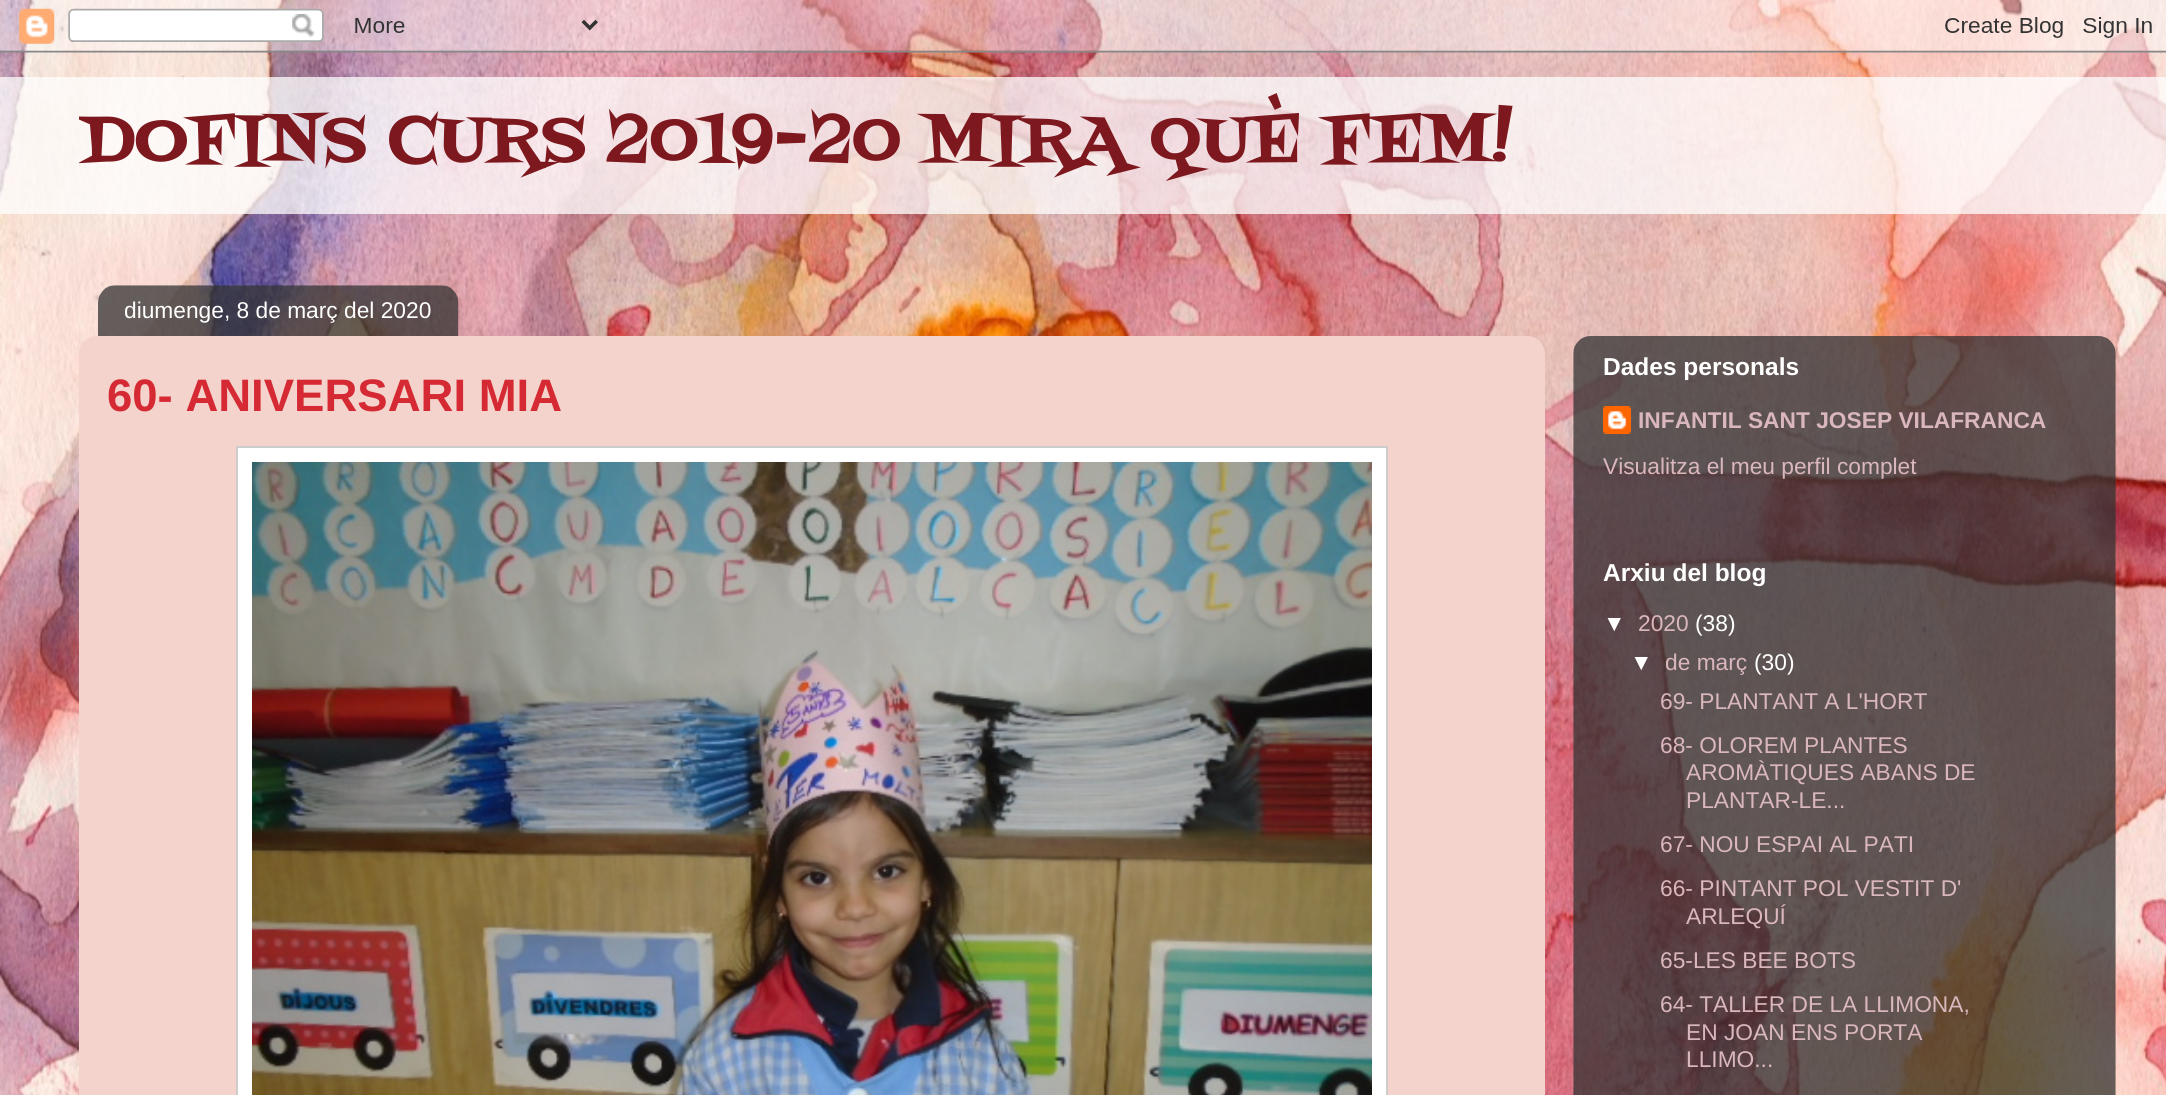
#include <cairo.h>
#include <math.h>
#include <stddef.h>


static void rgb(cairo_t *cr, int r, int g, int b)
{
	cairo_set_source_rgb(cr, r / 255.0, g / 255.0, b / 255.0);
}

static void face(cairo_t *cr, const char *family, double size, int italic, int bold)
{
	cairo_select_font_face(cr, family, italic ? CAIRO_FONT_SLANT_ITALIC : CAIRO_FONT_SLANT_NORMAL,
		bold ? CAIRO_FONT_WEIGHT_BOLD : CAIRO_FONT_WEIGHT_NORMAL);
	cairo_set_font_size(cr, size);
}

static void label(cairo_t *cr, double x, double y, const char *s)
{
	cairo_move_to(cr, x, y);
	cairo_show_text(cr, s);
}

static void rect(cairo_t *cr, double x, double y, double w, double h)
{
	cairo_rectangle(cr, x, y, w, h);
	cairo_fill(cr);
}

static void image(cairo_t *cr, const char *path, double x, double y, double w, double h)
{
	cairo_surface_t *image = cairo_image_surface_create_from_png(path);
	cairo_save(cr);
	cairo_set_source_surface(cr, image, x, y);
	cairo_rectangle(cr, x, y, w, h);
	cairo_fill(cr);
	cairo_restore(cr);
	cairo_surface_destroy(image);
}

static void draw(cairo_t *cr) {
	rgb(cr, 255, 255, 255);
	cairo_paint(cr);
	image(cr, "image0.png", 0, 0, 2166, 1095);
	image(cr, "image1.png", 0, 0, 2166, 53);
	cairo_set_source_rgba(cr, 1, 1, 1, 0.75);
	rect(cr, 0, 77, 2166, 137);
	cairo_save(cr);
	cairo_rectangle(cr, 79, 77, 2009, 137);
	cairo_clip(cr);
	face(cr, "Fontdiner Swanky", 66.5, 0, 0);
	rgb(cr, 125, 24, 30);
	label(cr, 79, 161, "DOFINS CURS 2019-20");
	cairo_restore(cr);
	face(cr, "Fontdiner Swanky", 66.5, 0, 0);
	rgb(cr, 125, 24, 30);
	label(cr, 922, 161, "MIRA QUÈ FEM!");
	rgb(cr, 244, 211, 204);
	cairo_new_path(cr);
	cairo_move_to(cr, 97, 337);
	cairo_line_to(cr, 1527, 337);
	cairo_curve_to(cr, 1536.5, 337, 1544, 344.5, 1544, 354);
	cairo_line_to(cr, 1544, 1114);
	cairo_line_to(cr, 80, 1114);
	cairo_line_to(cr, 80, 354);
	cairo_curve_to(cr, 80, 344.5, 87.5, 337, 97, 337);
	cairo_close_path(cr);
	cairo_fill_preserve(cr);
	cairo_stroke(cr);
	image(cr, "image2.png", 98, 285, 361, 51);
	face(cr, "Liberation Sans", 22.75, 0, 0);
	rgb(cr, 255, 255, 255);
	label(cr, 124, 318, "diumenge, 8 de març del 2020");
	face(cr, "Liberation Sans", 45.5, 0, 1);
	rgb(cr, 213, 42, 51);
	label(cr, 107, 411, "60- ANIVERSARI MIA");
	rgb(cr, 255, 255, 255);
	cairo_rectangle(cr, 237, 447, 1150, 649);
	cairo_fill_preserve(cr);
	rgb(cr, 204, 204, 204);
	cairo_stroke(cr);
	image(cr, "image3.png", 252, 462, 1120, 633);
	image(cr, "image4.png", 1573, 336, 543, 759);
	face(cr, "Liberation Sans", 24.5, 0, 1);
	rgb(cr, 255, 255, 255);
	label(cr, 1603, 375, "Dades personals");
	image(cr, "image5.png", 1603, 406, 28, 28);
	face(cr, "Liberation Sans", 22.75, 0, 1);
	rgb(cr, 218, 183, 188);
	label(cr, 1638, 428, "INFANTIL SANT JOSEP VILAFRANCA");
	face(cr, "Liberation Sans", 22.75, 0, 0);
	label(cr, 1603, 474, "Visualitza el meu perfil complet");
	face(cr, "Liberation Sans", 24.5, 0, 1);
	rgb(cr, 255, 255, 255);
	label(cr, 1603, 581, "Arxiu del blog");
	face(cr, "Liberation Sans", 22.75, 0, 0);
	label(cr, 1603, 631, "▼");
	rgb(cr, 218, 183, 188);
	label(cr, 1638, 631, "2020");
	rgb(cr, 255, 255, 255);
	label(cr, 1695, 631, "(38)");
	label(cr, 1630, 670, "▼");
	rgb(cr, 218, 183, 188);
	label(cr, 1665, 670, "de març");
	rgb(cr, 255, 255, 255);
	label(cr, 1754, 670, "(30)");
	rgb(cr, 218, 183, 188);
	label(cr, 1660, 709, "69- PLANTANT A L'HORT");
	label(cr, 1660, 753, "68- OLOREM PLANTES");
	label(cr, 1686, 780, "AROMÀTIQUES ABANS DE");
	label(cr, 1686, 808, "PLANTAR-LE...");
	label(cr, 1660, 852, "67- NOU ESPAI AL PATI");
	label(cr, 1660, 896, "66- PINTANT POL VESTIT D'");
	label(cr, 1686, 924, "ARLEQUÍ");
	label(cr, 1660, 968, "65-LES BEE BOTS");
	label(cr, 1660, 1012, "64- TALLER DE LA LLIMONA,");
	label(cr, 1686, 1040, "EN JOAN ENS PORTA");
	label(cr, 1686, 1067, "LLIMO...");
}

int main(void) {
	cairo_surface_t *surface = cairo_image_surface_create(CAIRO_FORMAT_RGB24, 2166, 1095);
	cairo_t *cr = cairo_create(surface);
	cairo_font_options_t *options = cairo_font_options_create();
	cairo_font_options_set_hint_metrics(options, CAIRO_HINT_METRICS_OFF);
	cairo_font_options_set_hint_style(options, CAIRO_HINT_STYLE_NONE);
	cairo_set_font_options(cr, options);
	cairo_set_miter_limit(cr, 4);
	draw(cr);
	cairo_surface_write_to_png(surface, "render.png");
	cairo_font_options_destroy(options);
	cairo_destroy(cr);
	cairo_surface_destroy(surface);
	return 0;
}
